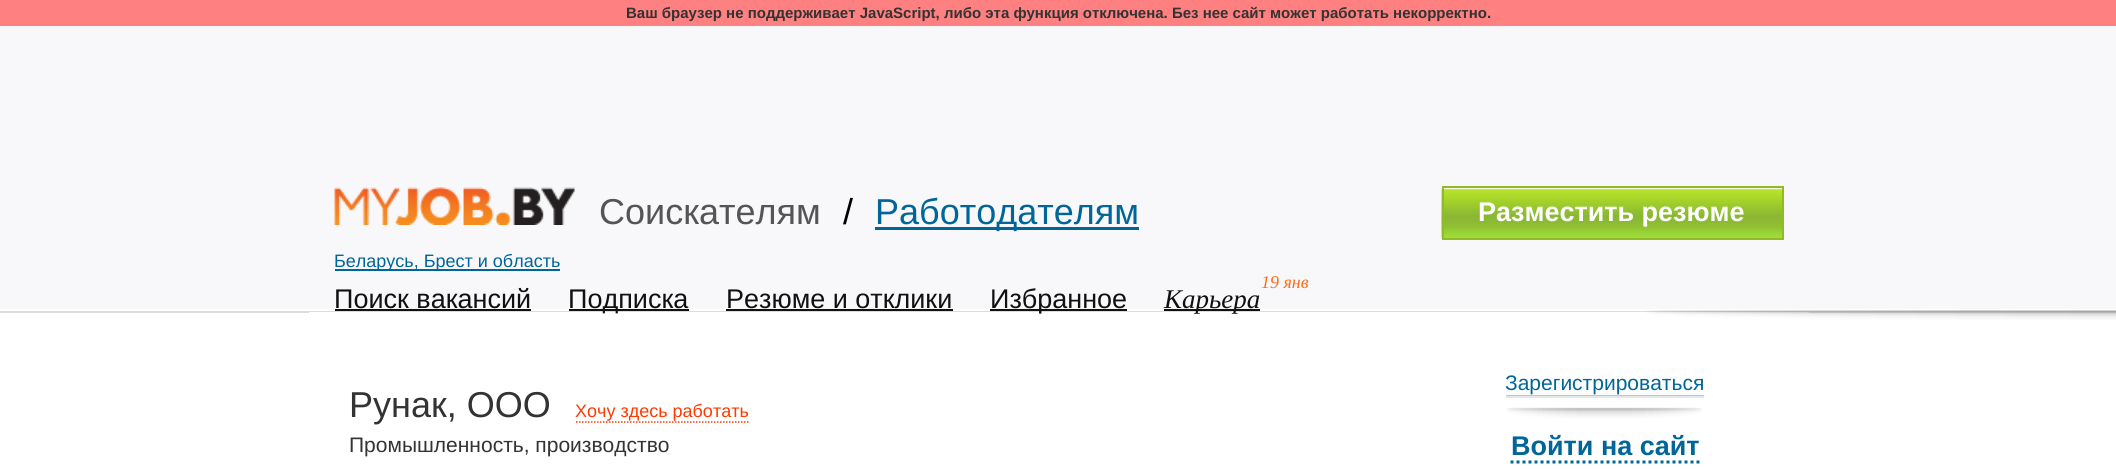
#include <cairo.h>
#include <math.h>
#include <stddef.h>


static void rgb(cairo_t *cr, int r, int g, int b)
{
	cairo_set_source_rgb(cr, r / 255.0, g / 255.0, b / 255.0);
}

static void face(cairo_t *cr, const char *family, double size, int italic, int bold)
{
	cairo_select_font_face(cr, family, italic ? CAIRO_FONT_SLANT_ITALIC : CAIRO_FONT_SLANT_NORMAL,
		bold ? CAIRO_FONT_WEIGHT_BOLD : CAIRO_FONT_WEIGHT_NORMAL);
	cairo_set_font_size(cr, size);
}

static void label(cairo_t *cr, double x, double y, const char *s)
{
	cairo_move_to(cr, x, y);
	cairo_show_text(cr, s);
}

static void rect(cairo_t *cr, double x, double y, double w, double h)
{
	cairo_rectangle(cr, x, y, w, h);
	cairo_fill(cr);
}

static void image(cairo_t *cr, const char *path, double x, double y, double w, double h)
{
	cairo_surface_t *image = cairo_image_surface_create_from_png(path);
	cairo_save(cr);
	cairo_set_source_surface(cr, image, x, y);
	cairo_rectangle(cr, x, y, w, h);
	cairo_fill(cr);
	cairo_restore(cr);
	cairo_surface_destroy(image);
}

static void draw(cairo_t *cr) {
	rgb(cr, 255, 255, 255);
	cairo_paint(cr);
	rgb(cr, 254, 128, 129);
	rect(cr, 0, 0, 2116, 26);
	face(cr, "Liberation Sans", 15, 0, 1);
	rgb(cr, 51, 51, 51);
	label(cr, 626, 18, "Ваш браузер не поддерживает JavaScript, либо эта функция отключена. Без нее сайт может работать некорректно.");
	rgb(cr, 248, 248, 250);
	rect(cr, 0, 26, 2116, 283);
	image(cr, "image0.png", 334, 187, 241, 38);
	face(cr, "Liberation Sans", 36, 0, 0);
	rgb(cr, 85, 85, 85);
	label(cr, 599, 224, "Соискателям");
	rgb(cr, 0, 0, 0);
	label(cr, 843, 224, "/");
	rgb(cr, 0, 102, 153);
	rect(cr, 875, 227, 264, 3);
	label(cr, 875, 224, "Работодателям");
	image(cr, "image1.png", 1441, 187, 341, 53);
	cairo_rectangle(cr, 1443, 187, 340, 52);
	rgb(cr, 144, 187, 34);
	cairo_stroke(cr);
	face(cr, "Liberation Sans", 27, 0, 1);
	rgb(cr, 255, 255, 255);
	label(cr, 1478, 221, "Разместить резюме");
	rgb(cr, 0, 102, 153);
	rect(cr, 335, 269, 225, 2);
	face(cr, "Liberation Sans", 18, 0, 0);
	label(cr, 334, 267, "Беларусь, Брест и область");
	face(cr, "Liberation Sans", 27, 0, 0);
	rgb(cr, 17, 17, 17);
	label(cr, 334, 308, "Поиск вакансий");
	rect(cr, 335, 309, 196, 2);
	rect(cr, 569, 309, 120, 2);
	rgb(cr, 221, 221, 221);
	rect(cr, 0, 311, 2116, 2);
	rgb(cr, 255, 255, 255);
	rect(cr, 309, 312, 1500, 1);
	rgb(cr, 17, 17, 17);
	label(cr, 568, 308, "Подписка");
	label(cr, 726, 308, "Резюме и отклики");
	rect(cr, 726, 309, 227, 2);
	rect(cr, 990, 309, 137, 2);
	label(cr, 990, 308, "Избранное");
	face(cr, "Liberation Serif", 18, 1, 0);
	rgb(cr, 255, 108, 24);
	label(cr, 1261, 288, "19 янв");
	rgb(cr, 17, 17, 17);
	rect(cr, 1164, 309, 96, 2);
	face(cr, "Liberation Serif", 27, 1, 0);
	label(cr, 1164, 308, "Карьера");
	image(cr, "image2.png", 1646, 310, 470, 10);
	face(cr, "Liberation Sans", 36, 0, 0);
	rgb(cr, 51, 51, 51);
	label(cr, 349, 417, "Рунак, ООО");
	face(cr, "Liberation Sans", 18, 0, 0);
	rgb(cr, 255, 58, 0);
	label(cr, 575, 417, "Хочу здесь работать");
	cairo_new_path(cr);
	cairo_move_to(cr, 576, 422);
	cairo_line_to(cr, 748.5, 422);
	cairo_set_line_width(cr, 1.5);
	cairo_set_dash(cr, (double[]){1.5, 1.5}, 2, 0);
	cairo_stroke(cr);
	face(cr, "Liberation Sans", 21, 0, 0);
	rgb(cr, 51, 51, 51);
	label(cr, 349, 452, "Промышленность, производство");
	image(cr, "image3.png", 1506, 407, 196, 12);
	rgb(cr, 0, 102, 153);
	label(cr, 1505, 390, "Зарегистрироваться");
	rgb(cr, 188, 200, 208);
	rect(cr, 1506, 395, 198, 1);
	rgb(cr, 228, 231, 233);
	rect(cr, 1506, 396, 198, 2);
	face(cr, "Liberation Sans", 27, 0, 1);
	rgb(cr, 0, 102, 153);
	label(cr, 1511, 455, "Войти на сайт");
	cairo_new_path(cr);
	cairo_move_to(cr, 1510.5, 462);
	cairo_line_to(cr, 1699.5, 462);
	cairo_set_line_width(cr, 3);
	cairo_set_dash(cr, (double[]){3, 3}, 2, 0);
	cairo_stroke(cr);
}

int main(void) {
	cairo_surface_t *surface = cairo_image_surface_create(CAIRO_FORMAT_RGB24, 2116, 469);
	cairo_t *cr = cairo_create(surface);
	cairo_font_options_t *options = cairo_font_options_create();
	cairo_font_options_set_hint_metrics(options, CAIRO_HINT_METRICS_OFF);
	cairo_font_options_set_hint_style(options, CAIRO_HINT_STYLE_NONE);
	cairo_set_font_options(cr, options);
	cairo_set_miter_limit(cr, 4);
	draw(cr);
	cairo_surface_write_to_png(surface, "render.png");
	cairo_font_options_destroy(options);
	cairo_destroy(cr);
	cairo_surface_destroy(surface);
	return 0;
}
